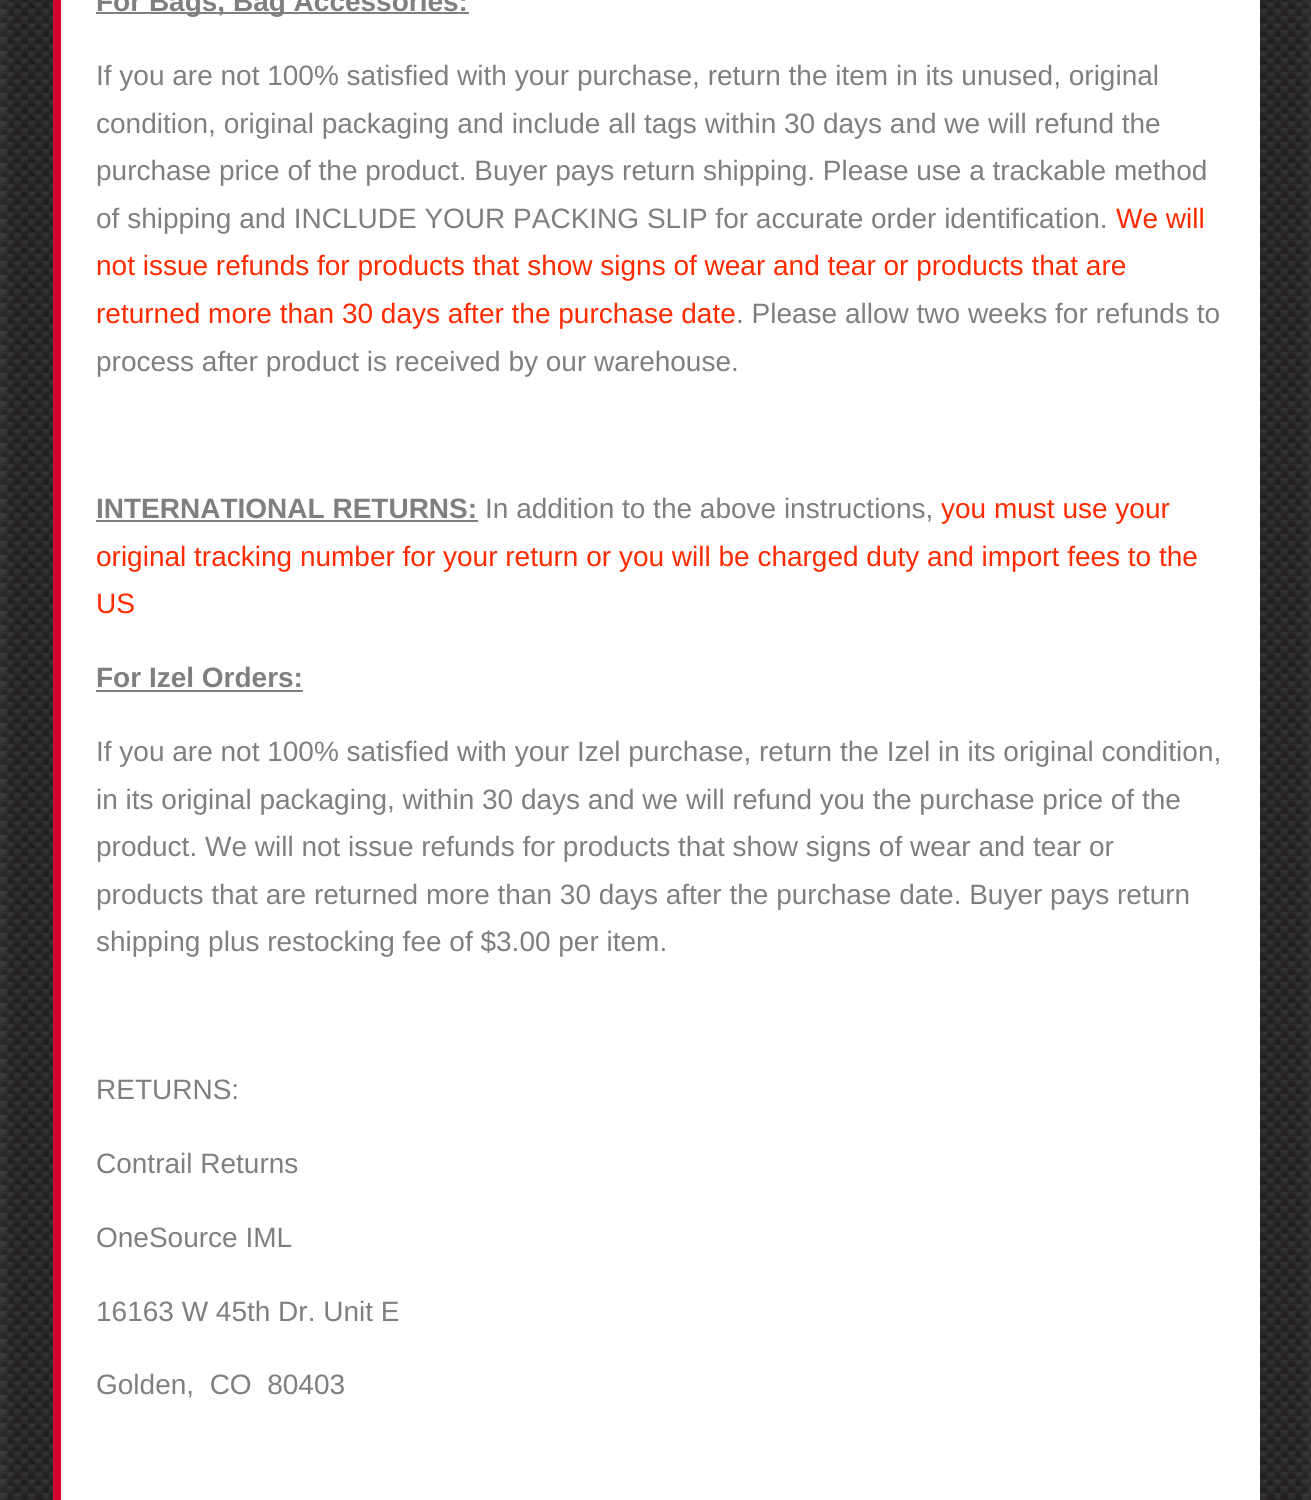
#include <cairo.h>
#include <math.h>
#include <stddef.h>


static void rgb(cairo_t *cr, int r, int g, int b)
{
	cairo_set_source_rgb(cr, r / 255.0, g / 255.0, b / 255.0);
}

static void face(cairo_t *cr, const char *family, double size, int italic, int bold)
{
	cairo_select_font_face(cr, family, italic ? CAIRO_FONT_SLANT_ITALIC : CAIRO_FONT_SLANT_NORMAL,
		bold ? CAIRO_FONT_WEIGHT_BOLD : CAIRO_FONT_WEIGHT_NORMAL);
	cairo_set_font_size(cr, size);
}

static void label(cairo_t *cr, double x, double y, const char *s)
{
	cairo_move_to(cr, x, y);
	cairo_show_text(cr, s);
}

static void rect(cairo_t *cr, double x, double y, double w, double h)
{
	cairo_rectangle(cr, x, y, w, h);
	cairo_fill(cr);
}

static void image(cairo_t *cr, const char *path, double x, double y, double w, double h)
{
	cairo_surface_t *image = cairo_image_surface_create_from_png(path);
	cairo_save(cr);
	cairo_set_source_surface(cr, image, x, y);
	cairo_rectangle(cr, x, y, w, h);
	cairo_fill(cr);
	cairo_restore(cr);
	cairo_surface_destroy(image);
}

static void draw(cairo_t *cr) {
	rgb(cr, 255, 255, 255);
	cairo_paint(cr);
	image(cr, "image0.png", 0, 0, 1311, 1500);
	rgb(cr, 255, 255, 255);
	rect(cr, 61, 0, 1199, 1500);
	rgb(cr, 214, 0, 46);
	rect(cr, 53, 0, 8, 1500);
	rgb(cr, 127, 127, 127);
	rect(cr, 96, 12, 373, 2);
	face(cr, "Liberation Sans", 28, 0, 1);
	label(cr, 96, 11, "For Bags, Bag Accessories:");
	face(cr, "Liberation Sans", 28, 0, 0);
	label(cr, 96, 85, "If you are not 100% satisfied with your purchase, return the item in its unused, original");
	label(cr, 96, 133, "condition, original packaging and include all tags within 30 days and we will refund the");
	label(cr, 96, 180, "purchase price of the product. Buyer pays return shipping. Please use a trackable method");
	label(cr, 96, 228, "of shipping and INCLUDE YOUR PACKING SLIP for accurate order identification.");
	rgb(cr, 255, 42, 0);
	label(cr, 1116, 228, "We will");
	label(cr, 96, 275, "not issue refunds for products that show signs of wear and tear or products that are");
	label(cr, 96, 323, "returned more than 30 days after the purchase date");
	rgb(cr, 127, 127, 127);
	label(cr, 736, 323, ". Please allow two weeks for refunds to");
	label(cr, 96, 371, "process after product is received by our warehouse.");
	face(cr, "Liberation Sans", 28, 0, 1);
	label(cr, 96, 518, "INTERNATIONAL RETURNS:");
	rect(cr, 96, 520, 382, 2);
	face(cr, "Liberation Sans", 28, 0, 0);
	label(cr, 485, 518, "In addition to the above instructions,");
	rgb(cr, 255, 42, 0);
	label(cr, 941, 518, "you must use your");
	label(cr, 96, 566, "original tracking number for your return or you will be charged duty and import fees to the");
	label(cr, 96, 613, "US");
	face(cr, "Liberation Sans", 28, 0, 1);
	rgb(cr, 127, 127, 127);
	label(cr, 96, 687, "For Izel Orders:");
	rect(cr, 96, 690, 207, 2);
	face(cr, "Liberation Sans", 28, 0, 0);
	label(cr, 96, 761, "If you are not 100% satisfied with your Izel purchase, return the Izel in its original condition,");
	label(cr, 96, 809, "in its original packaging, within 30 days and we will refund you the purchase price of the");
	label(cr, 96, 856, "product. We will not issue refunds for products that show signs of wear and tear or");
	label(cr, 96, 904, "products that are returned more than 30 days after the purchase date. Buyer pays return");
	label(cr, 96, 951, "shipping plus restocking fee of $3.00 per item.");
	label(cr, 96, 1099, "RETURNS:");
	label(cr, 96, 1173, "Contrail Returns");
	label(cr, 96, 1247, "OneSource IML");
	label(cr, 96, 1321, "16163 W 45th Dr. Unit E");
	label(cr, 96, 1394, "Golden,  CO  80403");
}

int main(void) {
	cairo_surface_t *surface = cairo_image_surface_create(CAIRO_FORMAT_RGB24, 1311, 1500);
	cairo_t *cr = cairo_create(surface);
	cairo_font_options_t *options = cairo_font_options_create();
	cairo_font_options_set_hint_metrics(options, CAIRO_HINT_METRICS_OFF);
	cairo_font_options_set_hint_style(options, CAIRO_HINT_STYLE_NONE);
	cairo_set_font_options(cr, options);
	cairo_set_miter_limit(cr, 4);
	draw(cr);
	cairo_surface_write_to_png(surface, "render.png");
	cairo_font_options_destroy(options);
	cairo_destroy(cr);
	cairo_surface_destroy(surface);
	return 0;
}
